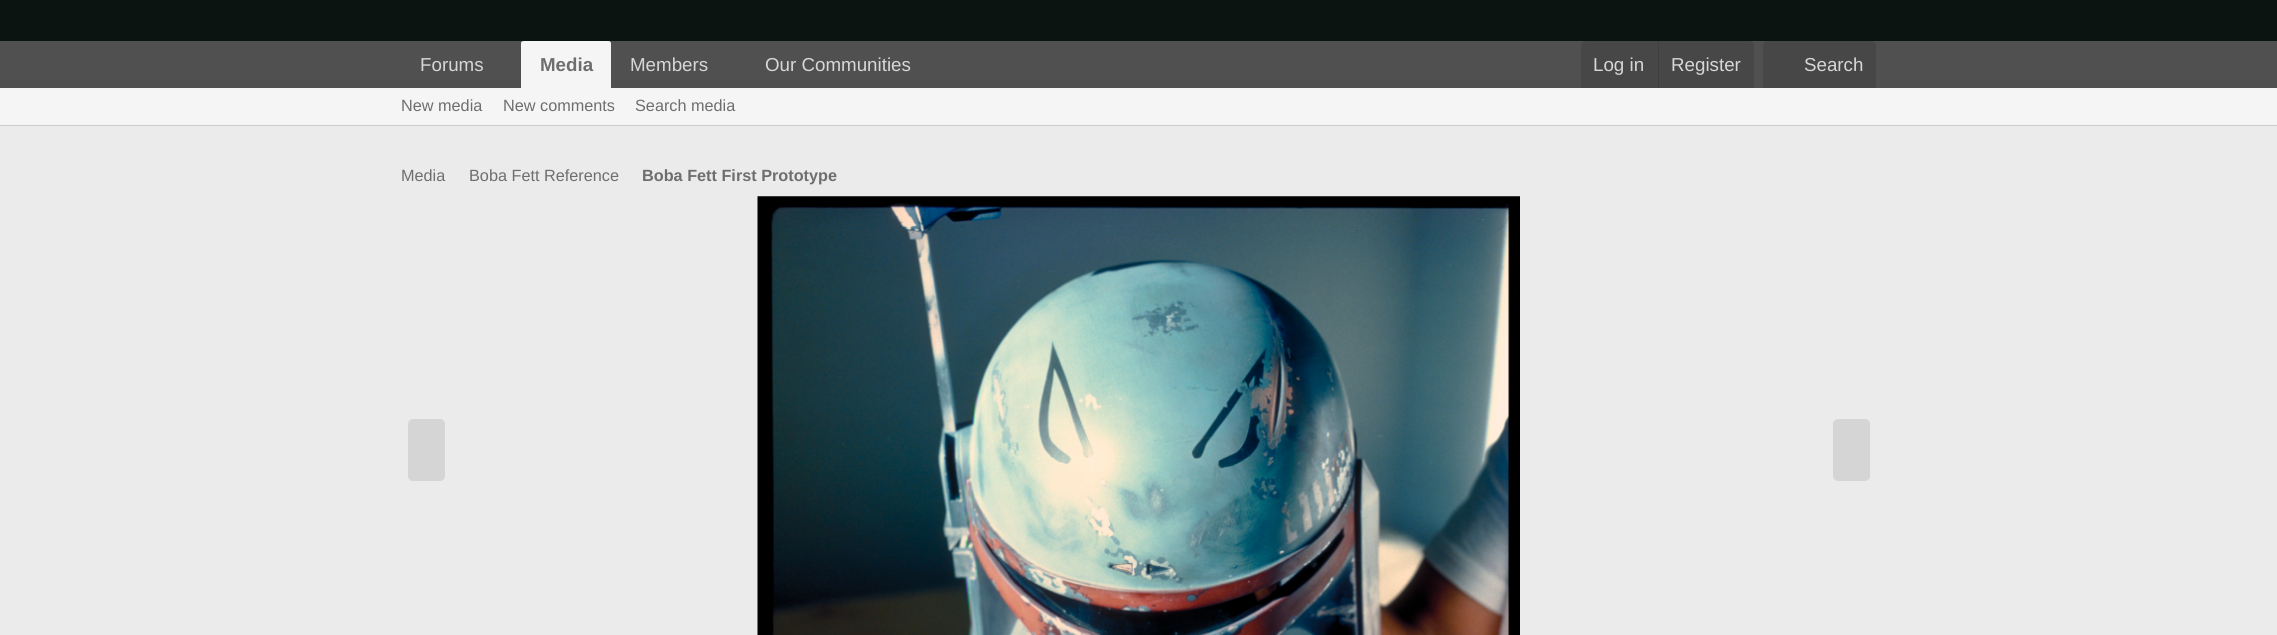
#include <cairo.h>
#include <math.h>
#include <stddef.h>


static void rgb(cairo_t *cr, int r, int g, int b)
{
	cairo_set_source_rgb(cr, r / 255.0, g / 255.0, b / 255.0);
}

static void face(cairo_t *cr, const char *family, double size, int italic, int bold)
{
	cairo_select_font_face(cr, family, italic ? CAIRO_FONT_SLANT_ITALIC : CAIRO_FONT_SLANT_NORMAL,
		bold ? CAIRO_FONT_WEIGHT_BOLD : CAIRO_FONT_WEIGHT_NORMAL);
	cairo_set_font_size(cr, size);
}

static void label(cairo_t *cr, double x, double y, const char *s)
{
	cairo_move_to(cr, x, y);
	cairo_show_text(cr, s);
}

static void rect(cairo_t *cr, double x, double y, double w, double h)
{
	cairo_rectangle(cr, x, y, w, h);
	cairo_fill(cr);
}

static void rrect(cairo_t *cr, double x, double y, double w, double h, double r)
{
	cairo_new_sub_path(cr);
	cairo_arc(cr, x + w - r, y + h - r, r, 0, M_PI / 2);
	cairo_arc(cr, x + r, y + h - r, r, M_PI / 2, M_PI);
	cairo_arc(cr, x + r, y + r, r, M_PI, 1.5 * M_PI);
	cairo_arc(cr, x + w - r, y + r, r, 1.5 * M_PI, 2 * M_PI);
	cairo_close_path(cr);
}

static void image(cairo_t *cr, const char *path, double x, double y, double w, double h)
{
	cairo_surface_t *image = cairo_image_surface_create_from_png(path);
	cairo_save(cr);
	cairo_set_source_surface(cr, image, x, y);
	cairo_rectangle(cr, x, y, w, h);
	cairo_fill(cr);
	cairo_restore(cr);
	cairo_surface_destroy(image);
}

static void draw(cairo_t *cr) {
	rgb(cr, 235, 235, 235);
	cairo_paint(cr);
	rgb(cr, 11, 20, 17);
	rect(cr, 0, 0, 2277, 41);
	rgb(cr, 80, 80, 80);
	rect(cr, 0, 41, 2277, 47);
	face(cr, "Liberation Sans", 18.75, 0, 0);
	rgb(cr, 215, 215, 215);
	label(cr, 420, 71, "Forums");
	rgb(cr, 245, 245, 245);
	cairo_new_path(cr);
	cairo_move_to(cr, 523.5, 41);
	cairo_line_to(cr, 608.5, 41);
	cairo_curve_to(cr, 610, 41, 611, 42, 611, 43.5);
	cairo_line_to(cr, 611, 88);
	cairo_line_to(cr, 521, 88);
	cairo_line_to(cr, 521, 43.5);
	cairo_curve_to(cr, 521, 42, 522, 41, 523.5, 41);
	cairo_close_path(cr);
	cairo_fill(cr);
	face(cr, "Liberation Sans", 18.75, 0, 1);
	rgb(cr, 110, 110, 110);
	label(cr, 540, 71, "Media");
	face(cr, "Liberation Sans", 18.75, 0, 0);
	rgb(cr, 215, 215, 215);
	label(cr, 630, 71, "Members");
	label(cr, 765, 71, "Our Communities");
	rgb(cr, 71, 71, 71);
	cairo_new_path(cr);
	cairo_move_to(cr, 1586, 41);
	cairo_line_to(cr, 1749, 41);
	cairo_curve_to(cr, 1752, 41, 1754, 43, 1754, 46);
	cairo_line_to(cr, 1754, 88);
	cairo_line_to(cr, 1581, 88);
	cairo_line_to(cr, 1581, 46);
	cairo_curve_to(cr, 1581, 43, 1583, 41, 1586, 41);
	cairo_close_path(cr);
	cairo_fill(cr);
	rgb(cr, 215, 215, 215);
	label(cr, 1593, 71, "Log in");
	rgb(cr, 63, 63, 63);
	rect(cr, 1658, 41, 1, 47);
	rgb(cr, 215, 215, 215);
	label(cr, 1671, 71, "Register");
	rgb(cr, 71, 71, 71);
	cairo_new_path(cr);
	cairo_move_to(cr, 1768, 41);
	cairo_line_to(cr, 1871, 41);
	cairo_curve_to(cr, 1874, 41, 1876, 43, 1876, 46);
	cairo_line_to(cr, 1876, 88);
	cairo_line_to(cr, 1763, 88);
	cairo_line_to(cr, 1763, 46);
	cairo_curve_to(cr, 1763, 43, 1765, 41, 1768, 41);
	cairo_close_path(cr);
	cairo_fill(cr);
	rgb(cr, 215, 215, 215);
	label(cr, 1804, 71, "Search");
	rgb(cr, 245, 245, 245);
	rect(cr, 0, 88, 2277, 37);
	rgb(cr, 204, 204, 204);
	rect(cr, 0, 125, 2277, 1);
	face(cr, "Liberation Sans", 16.25, 0, 0);
	rgb(cr, 110, 110, 110);
	label(cr, 401, 111, "New media");
	label(cr, 503, 111, "New comments");
	label(cr, 635, 111, "Search media");
	label(cr, 401, 181, "Media");
	label(cr, 469, 181, "Boba Fett Reference");
	face(cr, "Liberation Sans", 16.25, 0, 1);
	label(cr, 642, 181, "Boba Fett First Prototype");
	rgb(cr, 213, 213, 213);
	rrect(cr, 408, 419, 37, 62, 5);
	cairo_fill(cr);
	image(cr, "image0.png", 757, 196, 763, 439);
	rrect(cr, 1833, 419, 37, 62, 5);
	cairo_fill(cr);
}

int main(void) {
	cairo_surface_t *surface = cairo_image_surface_create(CAIRO_FORMAT_RGB24, 2277, 635);
	cairo_t *cr = cairo_create(surface);
	cairo_font_options_t *options = cairo_font_options_create();
	cairo_font_options_set_hint_metrics(options, CAIRO_HINT_METRICS_OFF);
	cairo_font_options_set_hint_style(options, CAIRO_HINT_STYLE_NONE);
	cairo_set_font_options(cr, options);
	cairo_set_miter_limit(cr, 4);
	draw(cr);
	cairo_surface_write_to_png(surface, "render.png");
	cairo_font_options_destroy(options);
	cairo_destroy(cr);
	cairo_surface_destroy(surface);
	return 0;
}
